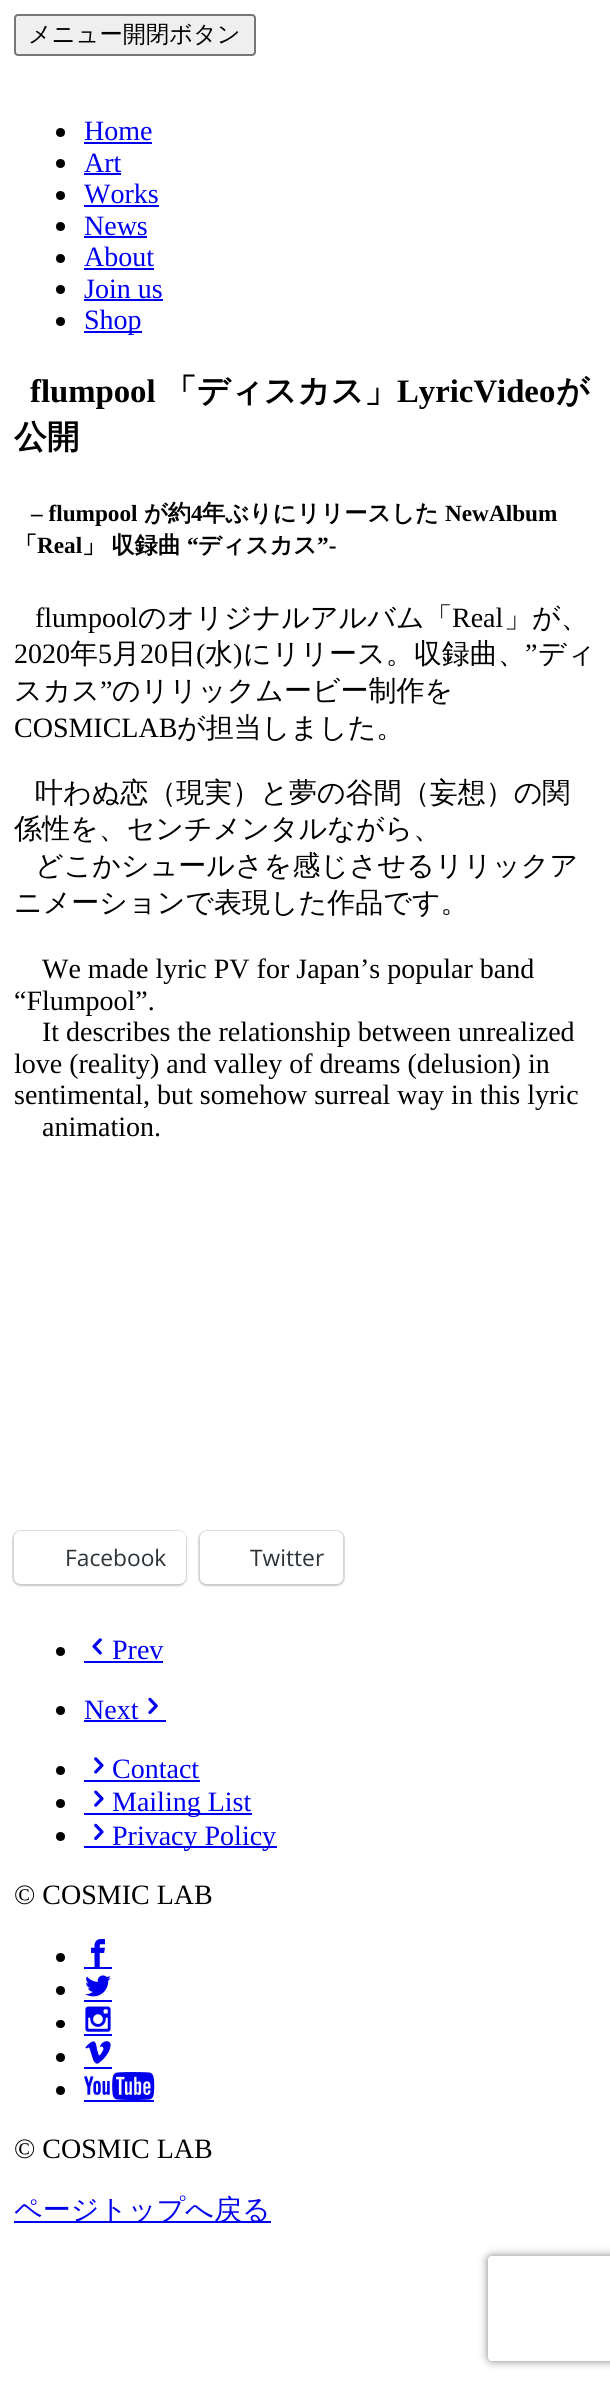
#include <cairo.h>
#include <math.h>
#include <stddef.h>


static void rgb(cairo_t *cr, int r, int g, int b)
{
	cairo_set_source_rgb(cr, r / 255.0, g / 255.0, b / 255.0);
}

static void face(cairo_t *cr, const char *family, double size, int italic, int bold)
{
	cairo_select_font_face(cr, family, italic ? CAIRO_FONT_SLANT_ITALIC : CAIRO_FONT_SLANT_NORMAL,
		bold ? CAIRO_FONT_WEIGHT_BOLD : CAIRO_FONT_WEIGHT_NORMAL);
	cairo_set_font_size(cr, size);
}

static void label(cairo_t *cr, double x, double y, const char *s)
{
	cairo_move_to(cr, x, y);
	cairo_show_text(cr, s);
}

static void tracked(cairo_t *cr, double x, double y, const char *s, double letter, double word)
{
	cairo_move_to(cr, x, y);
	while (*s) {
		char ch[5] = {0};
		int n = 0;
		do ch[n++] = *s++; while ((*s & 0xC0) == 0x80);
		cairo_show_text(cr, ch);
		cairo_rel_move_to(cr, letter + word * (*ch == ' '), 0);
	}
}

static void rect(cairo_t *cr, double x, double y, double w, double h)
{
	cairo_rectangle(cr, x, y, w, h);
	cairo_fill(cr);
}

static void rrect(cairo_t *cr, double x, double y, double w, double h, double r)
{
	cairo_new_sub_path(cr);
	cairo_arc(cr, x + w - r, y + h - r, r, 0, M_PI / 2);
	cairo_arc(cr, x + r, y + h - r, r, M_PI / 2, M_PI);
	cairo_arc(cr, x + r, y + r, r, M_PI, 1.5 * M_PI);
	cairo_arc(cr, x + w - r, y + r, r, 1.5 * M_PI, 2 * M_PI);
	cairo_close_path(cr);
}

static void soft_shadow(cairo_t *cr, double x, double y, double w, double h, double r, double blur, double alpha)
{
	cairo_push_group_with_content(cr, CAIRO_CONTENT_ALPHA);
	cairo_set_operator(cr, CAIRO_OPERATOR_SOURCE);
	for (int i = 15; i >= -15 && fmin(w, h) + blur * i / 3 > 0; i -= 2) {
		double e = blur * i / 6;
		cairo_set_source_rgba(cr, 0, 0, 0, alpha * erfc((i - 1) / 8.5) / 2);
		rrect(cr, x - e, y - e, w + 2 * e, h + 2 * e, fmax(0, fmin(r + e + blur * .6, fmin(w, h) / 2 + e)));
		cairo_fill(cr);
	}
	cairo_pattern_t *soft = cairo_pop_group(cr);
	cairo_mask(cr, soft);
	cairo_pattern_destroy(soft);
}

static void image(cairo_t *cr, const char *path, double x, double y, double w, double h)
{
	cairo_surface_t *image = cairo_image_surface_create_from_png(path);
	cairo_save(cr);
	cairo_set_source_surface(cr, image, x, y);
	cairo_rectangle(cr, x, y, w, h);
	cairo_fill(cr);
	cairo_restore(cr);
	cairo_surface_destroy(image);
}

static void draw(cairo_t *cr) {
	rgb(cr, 255, 255, 255);
	cairo_paint(cr);
	rgb(cr, 239, 239, 239);
	rrect(cr, 15, 15, 240, 40, 3);
	cairo_fill_preserve(cr);
	rgb(cr, 118, 118, 118);
	cairo_stroke(cr);
	face(cr, "WenQuanYi Zen Hei Medium", 23.25, 0, 0);
	rgb(cr, 0, 0, 0);
	label(cr, 28, 42, "メニュー開閉ボタン");
	cairo_new_path(cr);
	cairo_arc(cr, 60.5, 132.5, 4.5, 0, 2 * M_PI);
	cairo_fill(cr);
	face(cr, "Liberation Serif", 28, 0, 0);
	rgb(cr, 0, 0, 238);
	label(cr, 84, 140, "Home");
	rect(cr, 84, 142, 68, 2);
	rgb(cr, 0, 0, 0);
	cairo_new_path(cr);
	cairo_arc(cr, 60.5, 163.5, 4.5, 0, 2 * M_PI);
	cairo_fill(cr);
	rgb(cr, 0, 0, 238);
	label(cr, 84, 172, "Art");
	rect(cr, 84, 173, 37, 2);
	rgb(cr, 0, 0, 0);
	cairo_new_path(cr);
	cairo_arc(cr, 60.5, 195.5, 4.5, 0, 2 * M_PI);
	cairo_fill(cr);
	rgb(cr, 0, 0, 238);
	label(cr, 84, 203, "Works");
	rect(cr, 84, 205, 75, 2);
	rgb(cr, 0, 0, 0);
	cairo_new_path(cr);
	cairo_arc(cr, 60.5, 226.5, 4.5, 0, 2 * M_PI);
	cairo_fill(cr);
	rgb(cr, 0, 0, 238);
	label(cr, 84, 235, "News");
	rect(cr, 84, 236, 63, 2);
	rgb(cr, 0, 0, 0);
	cairo_new_path(cr);
	cairo_arc(cr, 60.5, 258.5, 4.5, 0, 2 * M_PI);
	cairo_fill(cr);
	rgb(cr, 0, 0, 238);
	label(cr, 84, 266, "About");
	rect(cr, 84, 268, 70, 2);
	rgb(cr, 0, 0, 0);
	cairo_new_path(cr);
	cairo_arc(cr, 60.5, 289.5, 4.5, 0, 2 * M_PI);
	cairo_fill(cr);
	rgb(cr, 0, 0, 238);
	label(cr, 84, 298, "Join us");
	rect(cr, 84, 299, 79, 2);
	rgb(cr, 0, 0, 0);
	cairo_new_path(cr);
	cairo_arc(cr, 60.5, 321.5, 4.5, 0, 2 * M_PI);
	cairo_fill(cr);
	rgb(cr, 0, 0, 238);
	rect(cr, 84, 331, 58, 2);
	label(cr, 84, 329, "Shop");
	face(cr, "Liberation Serif", 32.75, 0, 1);
	rgb(cr, 0, 0, 0);
	label(cr, 30, 402, "flumpool");
	face(cr, "WenQuanYi Zen Hei", 32.75, 0, 1);
	label(cr, 164, 402, "「ディスカス」");
	face(cr, "Liberation Serif", 32.75, 0, 1);
	label(cr, 397, 402, "LyricVideo");
	face(cr, "WenQuanYi Zen Hei", 32.75, 0, 1);
	label(cr, 556, 402, "が");
	label(cr, 14, 448, "公開");
	face(cr, "Liberation Serif", 23.25, 0, 1);
	label(cr, 31, 521, "– flumpool");
	face(cr, "WenQuanYi Zen Hei", 23.25, 0, 1);
	label(cr, 144, 521, "が約");
	face(cr, "Liberation Serif", 23.25, 0, 1);
	label(cr, 191, 521, "4");
	face(cr, "WenQuanYi Zen Hei", 23.25, 0, 1);
	label(cr, 202, 521, "年ぶりにリリースした");
	face(cr, "Liberation Serif", 23.25, 0, 1);
	label(cr, 445, 521, "NewAlbum");
	face(cr, "WenQuanYi Zen Hei", 23.25, 0, 1);
	label(cr, 14, 553, "「");
	face(cr, "Liberation Serif", 23.25, 0, 1);
	label(cr, 37, 553, "Real");
	face(cr, "WenQuanYi Zen Hei", 23.25, 0, 1);
	tracked(cr, 82, 553, "」 収録曲", 0, -1);
	face(cr, "Liberation Serif", 23.25, 0, 1);
	label(cr, 187, 553, "“");
	face(cr, "WenQuanYi Zen Hei", 23.25, 0, 1);
	label(cr, 198, 553, "ディスカス");
	face(cr, "Liberation Serif", 23.25, 0, 1);
	label(cr, 317, 553, "”-");
	face(cr, "Liberation Serif", 28, 0, 0);
	label(cr, 35, 627, "flumpool");
	face(cr, "WenQuanYi Zen Hei Medium", 28, 0, 0);
	label(cr, 138, 627, "のオリジナルアルバム「");
	face(cr, "Liberation Serif", 28, 0, 0);
	label(cr, 452, 627, "Real");
	face(cr, "WenQuanYi Zen Hei Medium", 28, 0, 0);
	label(cr, 504, 627, "」が、");
	face(cr, "Liberation Serif", 28, 0, 0);
	label(cr, 14, 663, "2020");
	face(cr, "WenQuanYi Zen Hei Medium", 28, 0, 0);
	label(cr, 70, 663, "年");
	face(cr, "Liberation Serif", 28, 0, 0);
	label(cr, 98, 663, "5");
	face(cr, "WenQuanYi Zen Hei Medium", 28, 0, 0);
	label(cr, 112, 663, "月");
	face(cr, "Liberation Serif", 28, 0, 0);
	label(cr, 140, 663, "20");
	face(cr, "WenQuanYi Zen Hei Medium", 28, 0, 0);
	label(cr, 168, 663, "日");
	face(cr, "Liberation Serif", 28, 0, 0);
	label(cr, 196, 663, "(");
	face(cr, "WenQuanYi Zen Hei Medium", 28, 0, 0);
	label(cr, 205, 663, "水");
	face(cr, "Liberation Serif", 28, 0, 0);
	label(cr, 233, 663, ")");
	face(cr, "WenQuanYi Zen Hei Medium", 28, 0, 0);
	label(cr, 243, 663, "にリリース。収録曲、");
	face(cr, "Liberation Serif", 28, 0, 0);
	label(cr, 525, 663, "”");
	face(cr, "WenQuanYi Zen Hei Medium", 28, 0, 0);
	label(cr, 538, 663, "ディ");
	label(cr, 14, 700, "スカス");
	face(cr, "Liberation Serif", 28, 0, 0);
	label(cr, 100, 700, "”");
	face(cr, "WenQuanYi Zen Hei Medium", 28, 0, 0);
	label(cr, 112, 700, "のリリックムービー制作を");
	face(cr, "Liberation Serif", 28, 0, 0);
	label(cr, 14, 737, "COSMICLAB");
	face(cr, "WenQuanYi Zen Hei Medium", 28, 0, 0);
	label(cr, 177, 737, "が担当しました。");
	label(cr, 35, 802, "叶わぬ恋（現実）と夢の谷間（妄想）の関");
	label(cr, 14, 838, "係性を、センチメンタルながら、");
	label(cr, 35, 875, "どこかシュールさを感じさせるリリックア");
	label(cr, 14, 912, "ニメーションで表現した作品です。");
	face(cr, "Liberation Serif", 28, 0, 0);
	label(cr, 42, 978, "We made lyric PV for Japan’s popular band");
	label(cr, 14, 1010, "“Flumpool”.");
	label(cr, 42, 1041, "It describes the relationship between unrealized");
	label(cr, 14, 1073, "love (reality) and valley of dreams (delusion) in");
	label(cr, 14, 1104, "sentimental, but somehow surreal way in this lyric");
	label(cr, 42, 1136, "animation.");
	rrect(cr, 13, 1531, 173, 54, 8);
	rgb(cr, 224, 224, 224);
	cairo_stroke(cr);
	rgb(cr, 0, 0, 0);
	soft_shadow(cr, 14, 1533, 172, 53, 7, 2, 0.12);
	rgb(cr, 255, 255, 255);
	rrect(cr, 14, 1531, 172, 53, 7);
	cairo_fill(cr);
	face(cr, "Open Sans", 22.75, 0, 0);
	rgb(cr, 44, 51, 56);
	label(cr, 65, 1566, "Facebook");
	rrect(cr, 199, 1531, 145, 54, 8);
	rgb(cr, 224, 224, 224);
	cairo_stroke(cr);
	rgb(cr, 0, 0, 0);
	soft_shadow(cr, 200, 1533, 143, 53, 7, 2, 0.12);
	rgb(cr, 255, 255, 255);
	rrect(cr, 200, 1531, 143, 53, 7);
	cairo_fill(cr);
	rgb(cr, 44, 51, 56);
	label(cr, 250, 1566, "Twitter");
	rgb(cr, 0, 0, 0);
	cairo_new_path(cr);
	cairo_arc(cr, 60.5, 1651.5, 4.5, 0, 2 * M_PI);
	cairo_fill(cr);
	image(cr, "image0.png", 92, 1638, 10, 17);
	face(cr, "Liberation Serif", 28, 0, 0);
	rgb(cr, 0, 0, 238);
	label(cr, 112, 1659, "Prev");
	rect(cr, 84, 1661, 79, 2);
	rgb(cr, 0, 0, 0);
	cairo_new_path(cr);
	cairo_arc(cr, 60.5, 1710.5, 4.5, 0, 2 * M_PI);
	cairo_fill(cr);
	rgb(cr, 0, 0, 238);
	label(cr, 84, 1719, "Next");
	rect(cr, 84, 1720, 82, 2);
	image(cr, "image1.png", 148, 1697, 10, 17);
	rgb(cr, 0, 0, 0);
	cairo_arc(cr, 60.5, 1770.5, 4.5, 0, 2 * M_PI);
	cairo_fill(cr);
	image(cr, "image2.png", 94, 1757, 10, 17);
	rgb(cr, 0, 0, 238);
	label(cr, 112, 1778, "Contact");
	rect(cr, 84, 1780, 116, 2);
	rgb(cr, 0, 0, 0);
	cairo_new_path(cr);
	cairo_arc(cr, 60.5, 1803.5, 4.5, 0, 2 * M_PI);
	cairo_fill(cr);
	image(cr, "image3.png", 94, 1790, 10, 17);
	rgb(cr, 0, 0, 238);
	rect(cr, 84, 1813, 168, 2);
	label(cr, 112, 1811, "Mailing List");
	rgb(cr, 0, 0, 0);
	cairo_new_path(cr);
	cairo_arc(cr, 60.5, 1836.5, 4.5, 0, 2 * M_PI);
	cairo_fill(cr);
	image(cr, "image4.png", 94, 1823, 10, 17);
	rgb(cr, 0, 0, 238);
	rect(cr, 84, 1846, 193, 2);
	label(cr, 112, 1845, "Privacy Policy");
	rgb(cr, 0, 0, 0);
	label(cr, 14, 1904, "© COSMIC LAB");
	cairo_new_path(cr);
	cairo_arc(cr, 60.5, 1957.5, 4.5, 0, 2 * M_PI);
	cairo_fill(cr);
	image(cr, "image5.png", 91, 1939, 14, 28);
	rgb(cr, 0, 0, 238);
	rect(cr, 84, 1967, 28, 2);
	rgb(cr, 0, 0, 0);
	cairo_arc(cr, 60.5, 1990.5, 4.5, 0, 2 * M_PI);
	cairo_fill(cr);
	image(cr, "image6.png", 85, 1975, 26, 22);
	rgb(cr, 0, 0, 238);
	rect(cr, 84, 2000, 28, 2);
	rgb(cr, 0, 0, 0);
	rrect(cr, 56, 2020, 9, 8, 4);
	cairo_fill(cr);
	image(cr, "image7.png", 85, 2006, 26, 26);
	rgb(cr, 0, 0, 238);
	rect(cr, 84, 2034, 28, 2);
	rgb(cr, 0, 0, 0);
	cairo_arc(cr, 60.5, 2057.5, 4.5, 0, 2 * M_PI);
	cairo_fill(cr);
	image(cr, "image8.png", 85, 2041, 26, 23);
	rgb(cr, 0, 0, 238);
	rect(cr, 84, 2067, 28, 2);
	rgb(cr, 0, 0, 0);
	cairo_arc(cr, 60.5, 2090.5, 4.5, 0, 2 * M_PI);
	cairo_fill(cr);
	image(cr, "image9.png", 84, 2072, 71, 28);
	rgb(cr, 0, 0, 238);
	rect(cr, 84, 2100, 70, 2);
	rgb(cr, 0, 0, 0);
	label(cr, 14, 2158, "© COSMIC LAB");
	rgb(cr, 0, 0, 238);
	rect(cr, 14, 2221, 257, 2);
	face(cr, "WenQuanYi Zen Hei Medium", 28, 0, 0);
	label(cr, 14, 2219, "ページトップへ戻る");
	cairo_save(cr);
	cairo_set_fill_rule(cr, CAIRO_FILL_RULE_EVEN_ODD);
	cairo_new_path(cr);
	cairo_move_to(cr, 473, 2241);
	cairo_line_to(cr, 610, 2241);
	cairo_line_to(cr, 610, 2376);
	cairo_line_to(cr, 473, 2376);
	cairo_close_path(cr);
	cairo_move_to(cr, 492, 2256);
	cairo_line_to(cr, 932, 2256);
	cairo_curve_to(cr, 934, 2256, 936, 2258, 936, 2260);
	cairo_line_to(cr, 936, 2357);
	cairo_curve_to(cr, 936, 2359, 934, 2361, 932, 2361);
	cairo_line_to(cr, 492, 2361);
	cairo_curve_to(cr, 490, 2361, 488, 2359, 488, 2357);
	cairo_line_to(cr, 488, 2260);
	cairo_curve_to(cr, 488, 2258, 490, 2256, 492, 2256);
	cairo_close_path(cr);
	cairo_clip(cr);
	rgb(cr, 128, 128, 128);
	soft_shadow(cr, 488, 2256, 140, 105, 4, 4.5, 1);
	cairo_restore(cr);
}

int main(void) {
	cairo_surface_t *surface = cairo_image_surface_create(CAIRO_FORMAT_RGB24, 610, 2384);
	cairo_t *cr = cairo_create(surface);
	cairo_font_options_t *options = cairo_font_options_create();
	cairo_font_options_set_hint_metrics(options, CAIRO_HINT_METRICS_OFF);
	cairo_font_options_set_hint_style(options, CAIRO_HINT_STYLE_NONE);
	cairo_set_font_options(cr, options);
	cairo_set_miter_limit(cr, 4);
	draw(cr);
	cairo_surface_write_to_png(surface, "render.png");
	cairo_font_options_destroy(options);
	cairo_destroy(cr);
	cairo_surface_destroy(surface);
	return 0;
}
